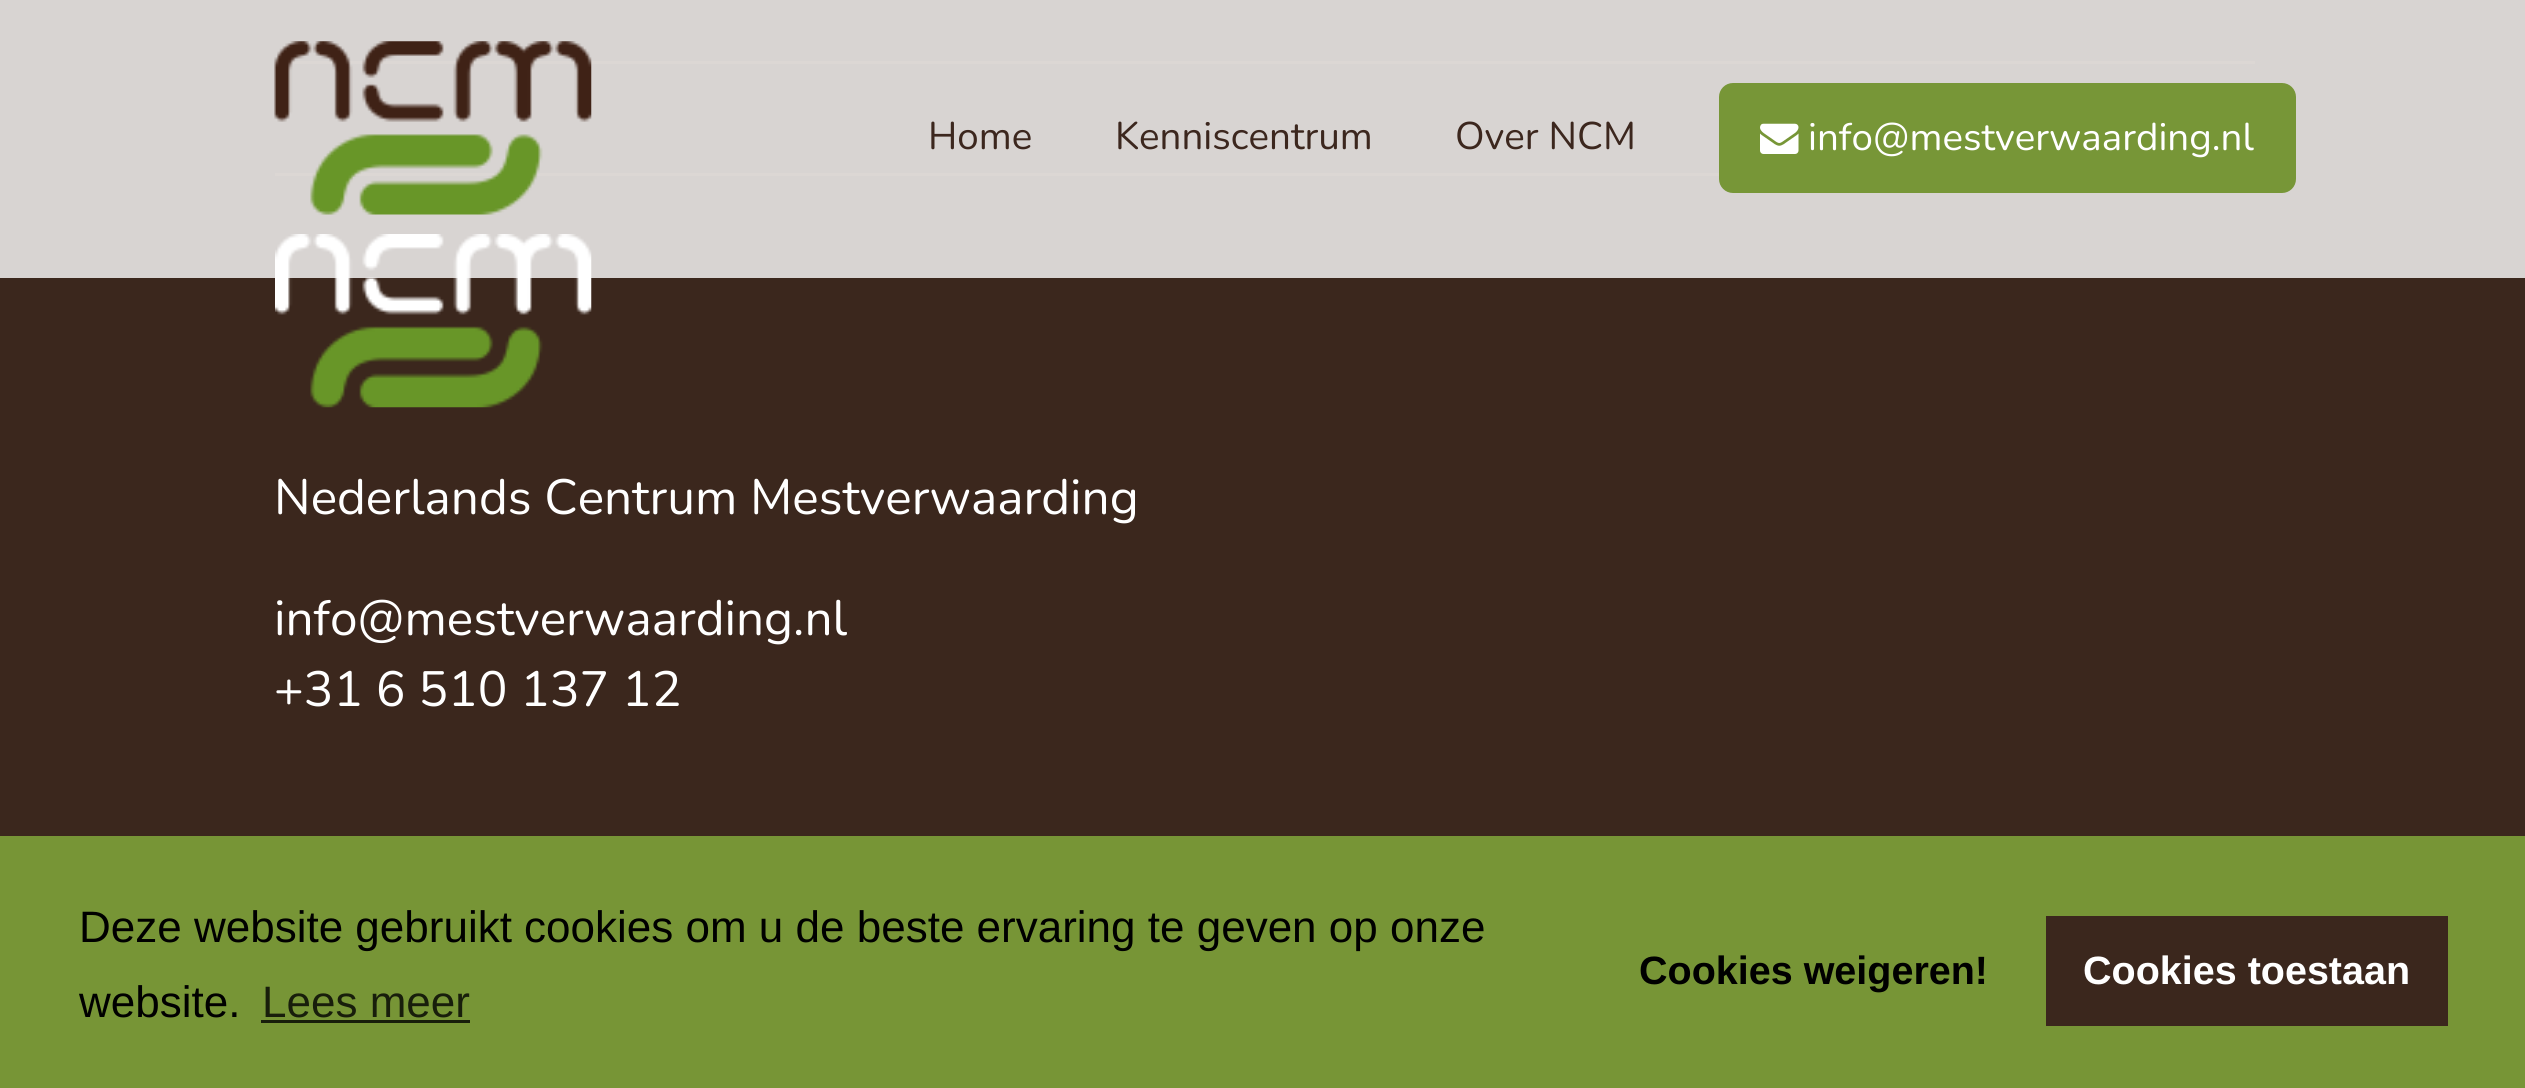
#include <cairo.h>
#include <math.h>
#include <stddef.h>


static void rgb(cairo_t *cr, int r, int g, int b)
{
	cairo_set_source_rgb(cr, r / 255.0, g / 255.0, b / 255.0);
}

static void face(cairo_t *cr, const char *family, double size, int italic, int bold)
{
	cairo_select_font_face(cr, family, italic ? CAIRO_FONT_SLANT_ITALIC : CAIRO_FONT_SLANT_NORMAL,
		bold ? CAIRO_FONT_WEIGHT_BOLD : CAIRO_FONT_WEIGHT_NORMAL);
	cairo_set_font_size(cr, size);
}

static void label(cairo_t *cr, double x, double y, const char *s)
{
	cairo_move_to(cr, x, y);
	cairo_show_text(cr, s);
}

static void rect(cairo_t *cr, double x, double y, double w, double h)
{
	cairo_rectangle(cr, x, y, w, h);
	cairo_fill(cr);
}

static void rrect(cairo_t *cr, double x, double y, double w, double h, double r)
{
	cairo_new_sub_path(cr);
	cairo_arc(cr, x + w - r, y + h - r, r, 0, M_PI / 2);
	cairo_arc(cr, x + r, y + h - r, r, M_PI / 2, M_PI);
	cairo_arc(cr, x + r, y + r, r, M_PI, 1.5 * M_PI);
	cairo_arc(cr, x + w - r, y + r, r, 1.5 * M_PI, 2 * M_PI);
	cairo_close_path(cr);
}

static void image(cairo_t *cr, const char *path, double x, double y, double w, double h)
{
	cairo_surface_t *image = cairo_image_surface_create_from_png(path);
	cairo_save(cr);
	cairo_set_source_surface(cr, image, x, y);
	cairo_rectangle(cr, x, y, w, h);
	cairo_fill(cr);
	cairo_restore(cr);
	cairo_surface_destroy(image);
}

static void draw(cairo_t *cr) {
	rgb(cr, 59, 39, 29);
	cairo_paint(cr);
	rgb(cr, 79, 53, 40);
	rect(cr, 275, 61, 1980, 3);
	rect(cr, 275, 173, 1444, 3);
	image(cr, "image2.png", 275, 234, 317, 174);
	cairo_set_source_rgba(cr, 1, 1, 1, 0.8);
	rect(cr, 0, 0, 2525, 278);
	image(cr, "image0.png", 274, 41, 318, 174);
	face(cr, "Nunito", 38.5, 0, 0);
	rgb(cr, 60, 39, 30);
	label(cr, 928, 149, "Home");
	label(cr, 1115, 149, "Kenniscentrum");
	label(cr, 1455, 149, "Over NCM");
	rgb(cr, 119, 150, 55);
	rrect(cr, 1719, 83, 577, 110, 14);
	cairo_fill(cr);
	image(cr, "image1.png", 1760, 123, 39, 31);
	rgb(cr, 255, 255, 255);
	label(cr, 1808, 150, "info@mestverwaarding.nl");
	face(cr, "Nunito", 49.5, 0, 0);
	label(cr, 274, 514, "Nederlands Centrum Mestverwaarding");
	label(cr, 274, 635, "info@mestverwaarding.nl");
	label(cr, 274, 706, "+31 6 510 137 12");
	rgb(cr, 119, 149, 54);
	rect(cr, 0, 836, 2525, 252);
	face(cr, "Liberation Sans", 44, 0, 0);
	rgb(cr, 0, 0, 0);
	label(cr, 79, 942, "Deze website gebruikt cookies om u de beste ervaring te geven op onze");
	label(cr, 79, 1017, "website.");
	rgb(cr, 24, 30, 11);
	label(cr, 262, 1017, "Lees meer");
	rect(cr, 261, 1020, 209, 3);
	face(cr, "Liberation Sans", 39.5, 0, 1);
	rgb(cr, 0, 0, 0);
	label(cr, 1639, 984, "Cookies weigeren!");
	rgb(cr, 59, 39, 29);
	rect(cr, 2046, 916, 402, 110);
	rgb(cr, 255, 255, 255);
	label(cr, 2083, 984, "Cookies toestaan");
}

int main(void) {
	cairo_surface_t *surface = cairo_image_surface_create(CAIRO_FORMAT_RGB24, 2525, 1088);
	cairo_t *cr = cairo_create(surface);
	cairo_font_options_t *options = cairo_font_options_create();
	cairo_font_options_set_hint_metrics(options, CAIRO_HINT_METRICS_OFF);
	cairo_font_options_set_hint_style(options, CAIRO_HINT_STYLE_NONE);
	cairo_set_font_options(cr, options);
	cairo_set_miter_limit(cr, 4);
	draw(cr);
	cairo_surface_write_to_png(surface, "render.png");
	cairo_font_options_destroy(options);
	cairo_destroy(cr);
	cairo_surface_destroy(surface);
	return 0;
}
